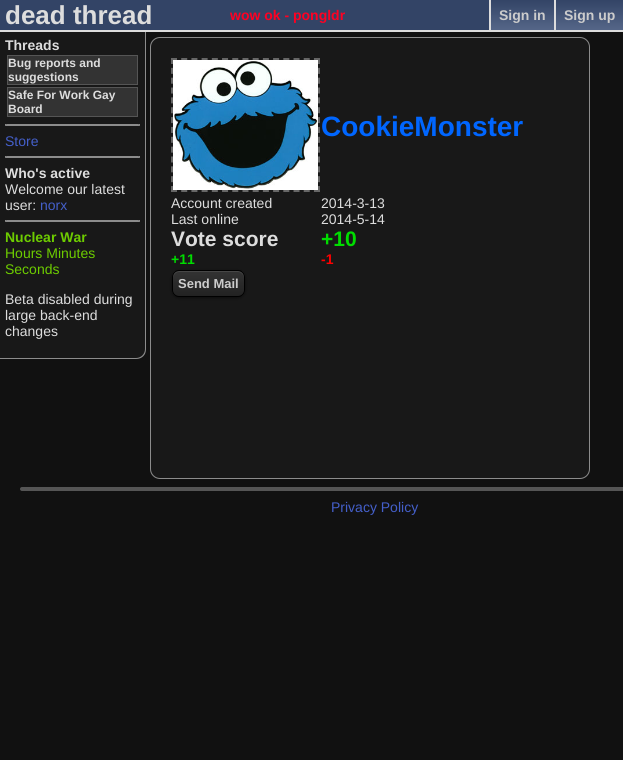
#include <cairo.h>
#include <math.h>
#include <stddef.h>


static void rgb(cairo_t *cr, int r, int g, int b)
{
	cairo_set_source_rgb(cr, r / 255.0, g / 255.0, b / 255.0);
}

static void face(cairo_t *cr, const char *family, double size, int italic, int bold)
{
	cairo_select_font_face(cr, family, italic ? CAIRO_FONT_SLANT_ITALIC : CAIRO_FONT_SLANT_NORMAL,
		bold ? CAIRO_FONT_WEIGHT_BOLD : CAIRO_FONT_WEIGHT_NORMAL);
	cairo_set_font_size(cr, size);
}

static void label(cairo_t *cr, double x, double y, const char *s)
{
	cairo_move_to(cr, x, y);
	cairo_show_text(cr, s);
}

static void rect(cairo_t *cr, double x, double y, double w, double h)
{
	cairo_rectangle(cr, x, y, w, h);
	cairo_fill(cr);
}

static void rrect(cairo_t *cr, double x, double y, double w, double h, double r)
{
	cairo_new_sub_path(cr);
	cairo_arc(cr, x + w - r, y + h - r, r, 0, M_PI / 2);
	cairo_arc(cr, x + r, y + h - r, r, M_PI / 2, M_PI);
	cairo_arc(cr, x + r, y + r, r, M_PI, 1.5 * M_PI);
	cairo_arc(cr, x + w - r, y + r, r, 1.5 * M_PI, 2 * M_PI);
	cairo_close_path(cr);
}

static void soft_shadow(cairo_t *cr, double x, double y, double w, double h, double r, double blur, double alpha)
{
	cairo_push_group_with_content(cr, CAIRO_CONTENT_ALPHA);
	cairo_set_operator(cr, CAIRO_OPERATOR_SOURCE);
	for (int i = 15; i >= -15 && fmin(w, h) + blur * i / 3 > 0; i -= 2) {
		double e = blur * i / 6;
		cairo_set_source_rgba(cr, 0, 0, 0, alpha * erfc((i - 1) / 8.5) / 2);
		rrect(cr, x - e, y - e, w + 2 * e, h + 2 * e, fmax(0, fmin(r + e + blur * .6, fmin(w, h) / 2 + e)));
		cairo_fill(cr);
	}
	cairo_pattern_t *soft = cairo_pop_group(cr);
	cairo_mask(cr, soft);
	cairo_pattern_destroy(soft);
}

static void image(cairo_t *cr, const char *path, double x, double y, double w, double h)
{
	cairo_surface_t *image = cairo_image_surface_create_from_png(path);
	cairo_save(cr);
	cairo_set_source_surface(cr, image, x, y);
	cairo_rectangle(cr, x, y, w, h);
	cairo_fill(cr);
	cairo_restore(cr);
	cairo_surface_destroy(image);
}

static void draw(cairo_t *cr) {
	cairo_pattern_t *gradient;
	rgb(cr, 17, 17, 17);
	cairo_paint(cr);
	rgb(cr, 51, 68, 102);
	rect(cr, 0, 0, 489, 30);
	rgb(cr, 221, 221, 221);
	rect(cr, 0, 30, 623, 2);
	face(cr, "Liberation Sans", 26, 0, 1);
	label(cr, 5, 24, "dead thread");
	face(cr, "Liberation Sans", 14, 0, 1);
	rgb(cr, 255, 0, 34);
	label(cr, 230, 20, "wow ok - pongldr");
	gradient = cairo_pattern_create_linear(523, 0, 523, 30);
	cairo_pattern_add_color_stop_rgba(gradient, 0, 0.2, 0.267, 0.4, 1);
	cairo_pattern_add_color_stop_rgba(gradient, 1, 0.333, 0.4, 0.533, 1);
	cairo_set_source(cr, gradient);
	cairo_pattern_destroy(gradient);
	rect(cr, 491, 0, 63, 30);
	rgb(cr, 221, 221, 221);
	rect(cr, 489, 0, 2, 30);
	rgb(cr, 204, 204, 204);
	label(cr, 499, 20, "Sign in");
	gradient = cairo_pattern_create_linear(590, 0, 590, 30);
	cairo_pattern_add_color_stop_rgba(gradient, 0, 0.2, 0.267, 0.4, 1);
	cairo_pattern_add_color_stop_rgba(gradient, 1, 0.333, 0.4, 0.533, 1);
	cairo_set_source(cr, gradient);
	cairo_pattern_destroy(gradient);
	rect(cr, 556, 0, 67, 30);
	rgb(cr, 221, 221, 221);
	rect(cr, 554, 0, 2, 30);
	rgb(cr, 204, 204, 204);
	label(cr, 564, 20, "Sign up");
	rgb(cr, 24, 24, 24);
	cairo_new_path(cr);
	cairo_move_to(cr, 0, 32);
	cairo_line_to(cr, 146, 32);
	cairo_line_to(cr, 146, 349);
	cairo_curve_to(cr, 146, 354.5, 141.5, 359, 136, 359);
	cairo_line_to(cr, 0, 359);
	cairo_close_path(cr);
	cairo_fill(cr);
	cairo_set_source_rgba(cr, 1, 1, 1, 0.5);
	cairo_set_fill_rule(cr, CAIRO_FILL_RULE_EVEN_ODD);
	cairo_new_path(cr);
	cairo_move_to(cr, 0, 32);
	cairo_line_to(cr, 146, 32);
	cairo_line_to(cr, 146, 349);
	cairo_curve_to(cr, 146, 355, 142, 359, 136, 359);
	cairo_line_to(cr, 0, 359);
	cairo_close_path(cr);
	cairo_move_to(cr, 0, 32);
	cairo_line_to(cr, 145, 32);
	cairo_line_to(cr, 145, 349);
	cairo_curve_to(cr, 145, 354, 141, 358, 136, 358);
	cairo_line_to(cr, 0, 358);
	cairo_close_path(cr);
	cairo_fill(cr);
	rgb(cr, 221, 221, 221);
	label(cr, 5, 50, "Threads");
	rgb(cr, 51, 51, 51);
	cairo_rectangle(cr, 7.5, 55.5, 130, 29);
	cairo_fill_preserve(cr);
	rgb(cr, 85, 85, 85);
	cairo_set_line_width(cr, 1);
	cairo_stroke(cr);
	face(cr, "Liberation Sans", 12, 0, 1);
	rgb(cr, 221, 221, 221);
	label(cr, 8, 67, "Bug reports and");
	label(cr, 8, 81, "suggestions");
	rgb(cr, 51, 51, 51);
	cairo_rectangle(cr, 7.5, 87.5, 130, 29);
	cairo_fill_preserve(cr);
	rgb(cr, 85, 85, 85);
	cairo_stroke(cr);
	rgb(cr, 221, 221, 221);
	label(cr, 8, 99, "Safe For Work Gay");
	label(cr, 8, 113, "Board");
	rgb(cr, 140, 140, 140);
	cairo_set_fill_rule(cr, CAIRO_FILL_RULE_WINDING);
	cairo_new_path(cr);
	cairo_move_to(cr, 140, 124);
	cairo_line_to(cr, 140, 126);
	cairo_line_to(cr, 138, 124);
	cairo_close_path(cr);
	cairo_fill(cr);
	cairo_set_source_rgba(cr, 1, 1, 1, 0.5);
	cairo_new_path(cr);
	cairo_move_to(cr, 140, 126);
	cairo_line_to(cr, 5, 126);
	cairo_line_to(cr, 7, 124);
	cairo_line_to(cr, 138, 124);
	cairo_close_path(cr);
	cairo_fill(cr);
	cairo_new_path(cr);
	cairo_move_to(cr, 5, 126);
	cairo_line_to(cr, 5, 124);
	cairo_line_to(cr, 7, 124);
	cairo_close_path(cr);
	cairo_fill(cr);
	face(cr, "Liberation Sans", 14, 0, 0);
	rgb(cr, 68, 95, 202);
	label(cr, 5, 146, "Store");
	rgb(cr, 140, 140, 140);
	cairo_new_path(cr);
	cairo_move_to(cr, 140, 156);
	cairo_line_to(cr, 140, 158);
	cairo_line_to(cr, 138, 156);
	cairo_close_path(cr);
	cairo_fill(cr);
	cairo_set_source_rgba(cr, 1, 1, 1, 0.5);
	cairo_new_path(cr);
	cairo_move_to(cr, 140, 158);
	cairo_line_to(cr, 5, 158);
	cairo_line_to(cr, 7, 156);
	cairo_line_to(cr, 138, 156);
	cairo_close_path(cr);
	cairo_fill(cr);
	cairo_new_path(cr);
	cairo_move_to(cr, 5, 158);
	cairo_line_to(cr, 5, 156);
	cairo_line_to(cr, 7, 156);
	cairo_close_path(cr);
	cairo_fill(cr);
	face(cr, "Liberation Sans", 14, 0, 1);
	rgb(cr, 221, 221, 221);
	label(cr, 5, 178, "Who's active");
	face(cr, "Liberation Sans", 14, 0, 0);
	label(cr, 5, 194, "Welcome our latest");
	label(cr, 5, 210, "user:");
	rgb(cr, 68, 95, 202);
	label(cr, 40, 210, "norx");
	rgb(cr, 140, 140, 140);
	cairo_new_path(cr);
	cairo_move_to(cr, 140, 220);
	cairo_line_to(cr, 140, 222);
	cairo_line_to(cr, 138, 220);
	cairo_close_path(cr);
	cairo_fill(cr);
	cairo_set_source_rgba(cr, 1, 1, 1, 0.5);
	cairo_new_path(cr);
	cairo_move_to(cr, 140, 222);
	cairo_line_to(cr, 5, 222);
	cairo_line_to(cr, 7, 220);
	cairo_line_to(cr, 138, 220);
	cairo_close_path(cr);
	cairo_fill(cr);
	cairo_new_path(cr);
	cairo_move_to(cr, 5, 222);
	cairo_line_to(cr, 5, 220);
	cairo_line_to(cr, 7, 220);
	cairo_close_path(cr);
	cairo_fill(cr);
	face(cr, "Liberation Sans", 14, 0, 1);
	rgb(cr, 109, 204, 0);
	label(cr, 5, 242, "Nuclear War");
	face(cr, "Liberation Sans", 14, 0, 0);
	label(cr, 5, 258, "Hours Minutes");
	label(cr, 5, 274, "Seconds");
	rgb(cr, 221, 221, 221);
	label(cr, 5, 304, "Beta disabled during");
	label(cr, 5, 320, "large back-end");
	label(cr, 5, 336, "changes");
	rgb(cr, 24, 24, 24);
	rrect(cr, 150, 37, 440, 442, 10);
	cairo_fill(cr);
	rrect(cr, 150.5, 37.5, 439, 441, 9.5);
	cairo_set_source_rgba(cr, 1, 1, 1, 0.5);
	cairo_stroke(cr);
	cairo_new_path(cr);
	cairo_move_to(cr, 171, 59);
	cairo_line_to(cr, 320, 59);
	rgb(cr, 102, 102, 102);
	cairo_set_line_width(cr, 2);
	cairo_set_dash(cr, (double[]){6, 4.21}, 2, 0);
	cairo_stroke(cr);
	cairo_new_path(cr);
	cairo_move_to(cr, 319, 58);
	cairo_line_to(cr, 319, 192);
	cairo_set_dash(cr, (double[]){6, 3.85}, 2, 0);
	cairo_stroke(cr);
	cairo_new_path(cr);
	cairo_move_to(cr, 171, 191);
	cairo_line_to(cr, 320, 191);
	cairo_set_dash(cr, (double[]){6, 4.21}, 2, 0);
	cairo_stroke(cr);
	cairo_new_path(cr);
	cairo_move_to(cr, 172, 58);
	cairo_line_to(cr, 172, 192);
	cairo_set_dash(cr, (double[]){6, 3.85}, 2, 0);
	cairo_stroke(cr);
	image(cr, "image0.png", 173, 60, 145, 130);
	face(cr, "Liberation Sans", 28, 0, 1);
	rgb(cr, 0, 102, 255);
	label(cr, 321, 136, "CookieMonster");
	face(cr, "Liberation Sans", 14, 0, 0);
	rgb(cr, 221, 221, 221);
	label(cr, 171, 208, "Account created");
	label(cr, 321, 208, "2014-3-13");
	label(cr, 171, 224, "Last online");
	label(cr, 321, 224, "2014-5-14");
	face(cr, "Liberation Sans", 21, 0, 1);
	label(cr, 171, 246, "Vote score");
	rgb(cr, 0, 221, 0);
	label(cr, 321, 246, "+10");
	face(cr, "Liberation Sans", 14, 0, 1);
	label(cr, 171, 264, "+11");
	rgb(cr, 255, 0, 0);
	label(cr, 321, 264, "-1");
	rgb(cr, 0, 0, 0);
	soft_shadow(cr, 172, 271, 73, 27, 7, 1.5, 0.5);
	cairo_save(cr);
	rrect(cr, 172, 270, 73, 27, 7);
	cairo_clip(cr);
	gradient = cairo_pattern_create_linear(209, 271, 209, 296);
	cairo_pattern_add_color_stop_rgba(gradient, 0, 0.2, 0.2, 0.2, 1);
	cairo_pattern_add_color_stop_rgba(gradient, 1, 0.133, 0.133, 0.133, 1);
	cairo_set_source(cr, gradient);
	cairo_pattern_destroy(gradient);
	rect(cr, 172, 271, 73, 25);
	cairo_restore(cr);
	rgb(cr, 71, 71, 71);
	cairo_new_path(cr);
	cairo_move_to(cr, 179, 272);
	cairo_line_to(cr, 238, 272);
	cairo_curve_to(cr, 241, 272, 244, 275, 244, 278);
	cairo_curve_to(cr, 244, 269, 235, 271, 228, 271);
	cairo_line_to(cr, 189, 271);
	cairo_curve_to(cr, 182, 271, 173, 269, 173, 278);
	cairo_curve_to(cr, 173, 275, 176, 272, 179, 272);
	cairo_close_path(cr);
	cairo_fill(cr);
	rrect(cr, 172.5, 270.5, 72, 26, 6.5);
	rgb(cr, 0, 0, 0);
	cairo_set_line_width(cr, 1);
	cairo_set_dash(cr, NULL, 0, 0);
	cairo_stroke(cr);
	face(cr, "Liberation Sans", 13, 0, 1);
	rgb(cr, 204, 204, 204);
	label(cr, 178, 288, "Send Mail");
	rgb(cr, 85, 85, 85);
	rrect(cr, 20, 487, 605, 4, 2);
	cairo_fill(cr);
	face(cr, "Liberation Sans", 14, 0, 0);
	rgb(cr, 68, 95, 202);
	label(cr, 331, 512, "Privacy Policy");
}

int main(void) {
	cairo_surface_t *surface = cairo_image_surface_create(CAIRO_FORMAT_RGB24, 623, 760);
	cairo_t *cr = cairo_create(surface);
	cairo_font_options_t *options = cairo_font_options_create();
	cairo_font_options_set_hint_metrics(options, CAIRO_HINT_METRICS_OFF);
	cairo_font_options_set_hint_style(options, CAIRO_HINT_STYLE_NONE);
	cairo_set_font_options(cr, options);
	cairo_set_miter_limit(cr, 4);
	draw(cr);
	cairo_surface_write_to_png(surface, "render.png");
	cairo_font_options_destroy(options);
	cairo_destroy(cr);
	cairo_surface_destroy(surface);
	return 0;
}
